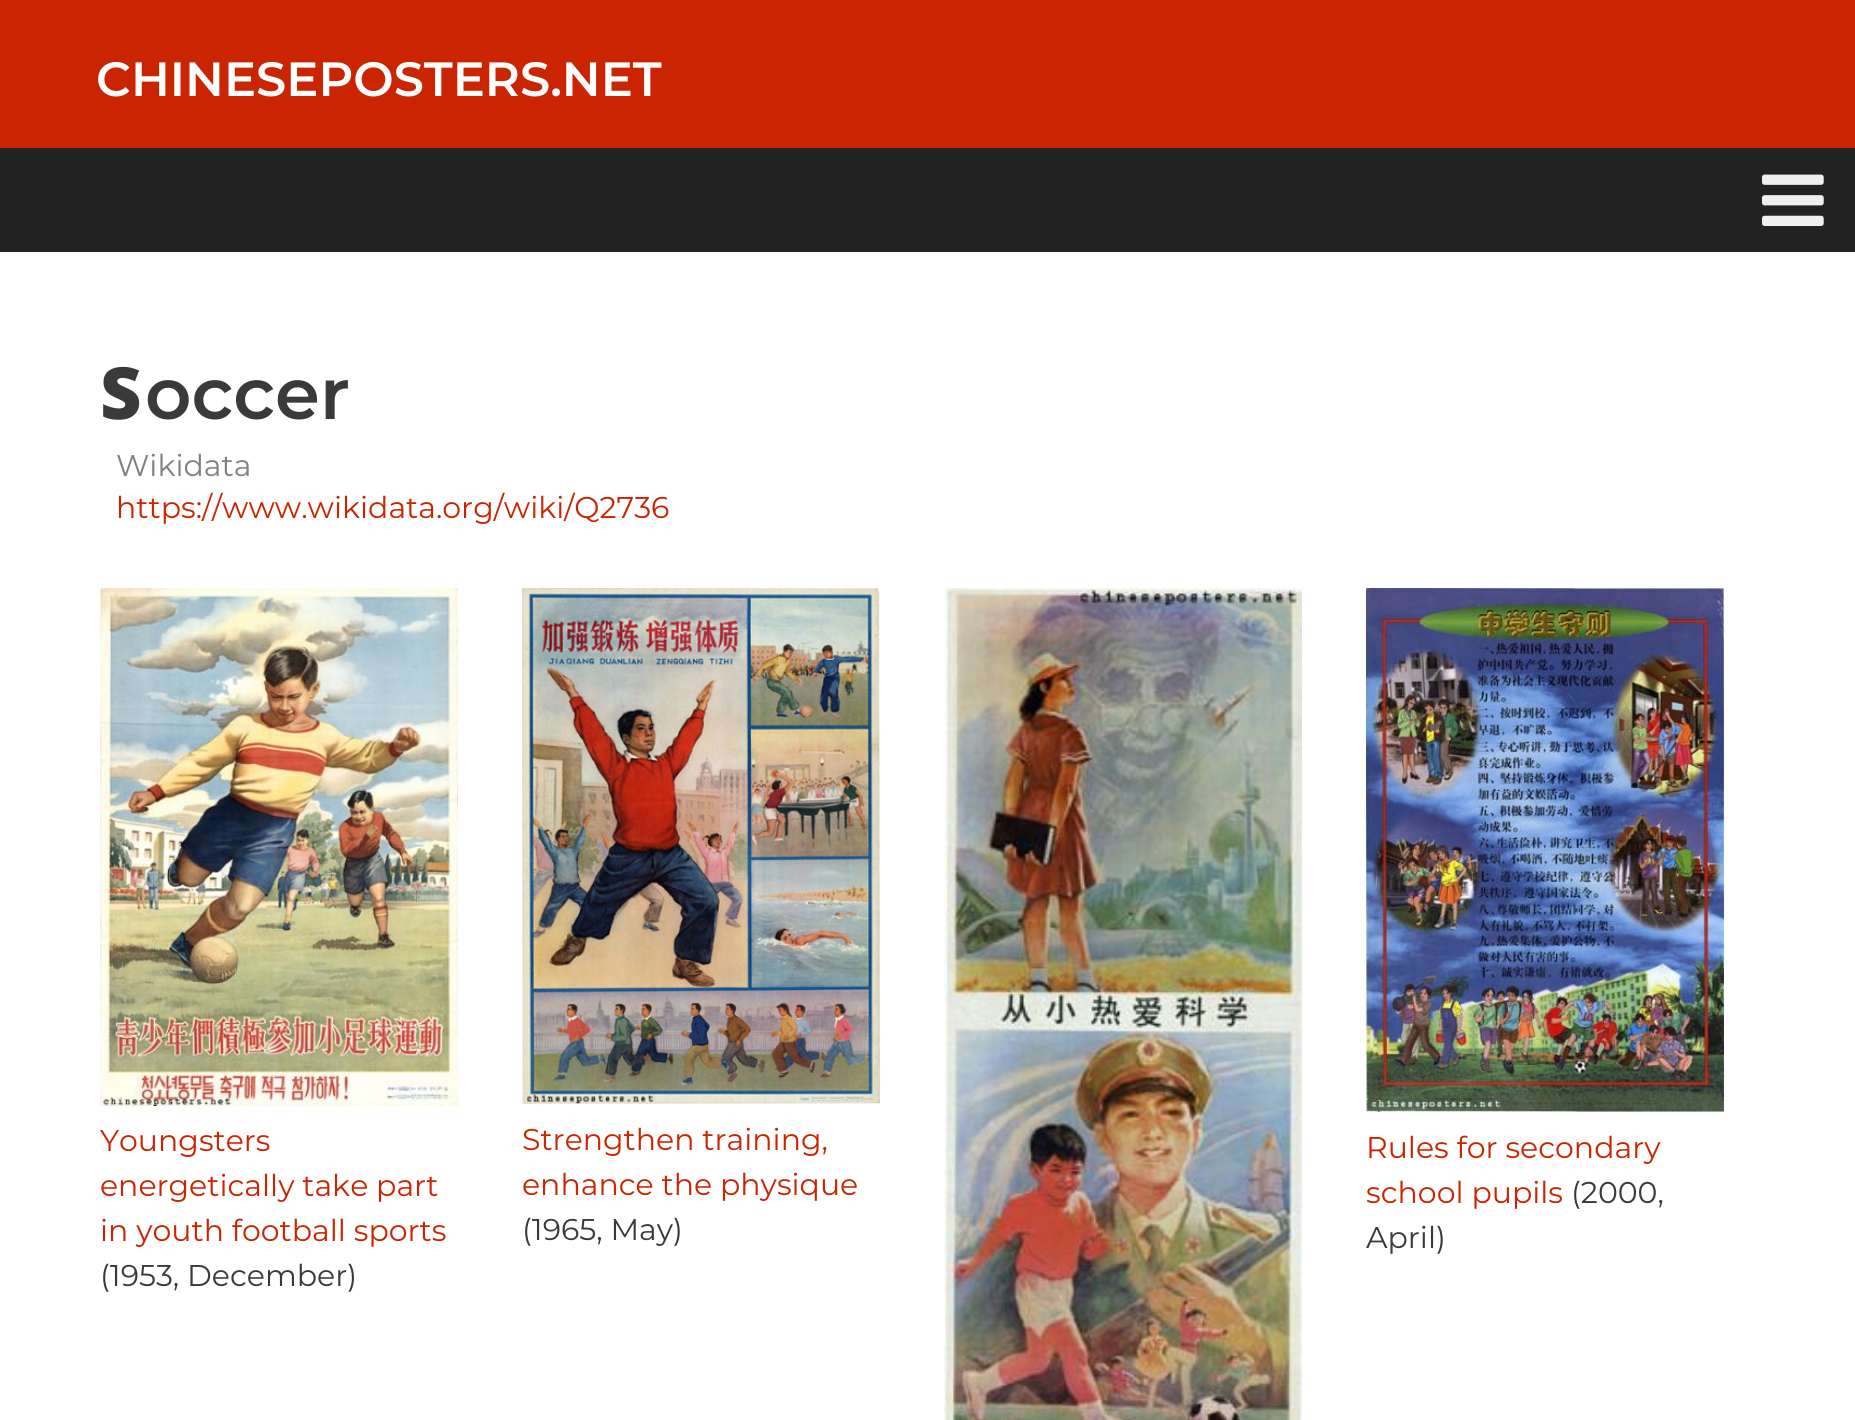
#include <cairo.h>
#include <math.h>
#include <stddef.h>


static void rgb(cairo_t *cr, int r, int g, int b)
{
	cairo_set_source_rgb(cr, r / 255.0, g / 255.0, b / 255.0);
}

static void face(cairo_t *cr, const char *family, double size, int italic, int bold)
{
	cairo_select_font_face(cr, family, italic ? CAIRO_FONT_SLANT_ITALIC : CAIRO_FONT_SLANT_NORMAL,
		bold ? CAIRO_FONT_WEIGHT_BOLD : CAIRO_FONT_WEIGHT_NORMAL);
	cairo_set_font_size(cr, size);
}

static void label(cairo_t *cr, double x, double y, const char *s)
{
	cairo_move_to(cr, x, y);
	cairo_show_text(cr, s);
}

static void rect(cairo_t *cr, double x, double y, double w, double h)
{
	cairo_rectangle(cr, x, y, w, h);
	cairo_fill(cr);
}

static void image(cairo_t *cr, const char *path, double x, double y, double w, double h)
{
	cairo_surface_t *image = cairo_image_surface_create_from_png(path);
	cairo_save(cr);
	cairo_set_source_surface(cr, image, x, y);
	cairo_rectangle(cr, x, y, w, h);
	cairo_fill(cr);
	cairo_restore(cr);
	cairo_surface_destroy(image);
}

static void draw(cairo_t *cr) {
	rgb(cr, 203, 36, 0);
	cairo_paint(cr);
	face(cr, "Montserrat SemiBold", 48, 0, 0);
	rgb(cr, 255, 255, 255);
	label(cr, 96, 96, "CHINESEPOSTERS.NET");
	rgb(cr, 34, 34, 34);
	rect(cr, 0, 148, 1855, 104);
	image(cr, "image0.png", 1762, 174, 62, 52);
	rgb(cr, 255, 255, 255);
	rect(cr, 0, 252, 1855, 1168);
	face(cr, "Noto Sans Black", 72, 0, 0);
	rgb(cr, 58, 58, 58);
	label(cr, 100, 419, "S");
	face(cr, "Montserrat SemiBold", 72, 0, 0);
	label(cr, 145, 419, "occer");
	face(cr, "Montserrat", 30, 0, 0);
	rgb(cr, 128, 128, 128);
	label(cr, 116, 476, "Wikidata");
	rgb(cr, 203, 36, 0);
	label(cr, 116, 518, "https://www.wikidata.org/wiki/Q2736");
	image(cr, "image1.png", 100, 588, 358, 518);
	label(cr, 100, 1151, "Youngsters");
	label(cr, 100, 1196, "energetically take part");
	label(cr, 100, 1241, "in youth football sports");
	rgb(cr, 58, 58, 58);
	label(cr, 100, 1286, "(1953, December)");
	image(cr, "image2.png", 522, 588, 358, 516);
	rgb(cr, 203, 36, 0);
	label(cr, 522, 1150, "Strengthen training,");
	label(cr, 522, 1195, "enhance the physique");
	rgb(cr, 58, 58, 58);
	label(cr, 522, 1240, "(1965, May)");
	image(cr, "image3.png", 944, 588, 358, 832);
	image(cr, "image4.png", 1366, 588, 358, 524);
	rgb(cr, 203, 36, 0);
	label(cr, 1366, 1158, "Rules for secondary");
	label(cr, 1366, 1203, "school pupils");
	rgb(cr, 58, 58, 58);
	label(cr, 1571, 1203, "(2000,");
	label(cr, 1366, 1248, "April)");
}

int main(void) {
	cairo_surface_t *surface = cairo_image_surface_create(CAIRO_FORMAT_RGB24, 1855, 1420);
	cairo_t *cr = cairo_create(surface);
	cairo_font_options_t *options = cairo_font_options_create();
	cairo_font_options_set_hint_metrics(options, CAIRO_HINT_METRICS_OFF);
	cairo_font_options_set_hint_style(options, CAIRO_HINT_STYLE_NONE);
	cairo_set_font_options(cr, options);
	cairo_set_miter_limit(cr, 4);
	draw(cr);
	cairo_surface_write_to_png(surface, "render.png");
	cairo_font_options_destroy(options);
	cairo_destroy(cr);
	cairo_surface_destroy(surface);
	return 0;
}
